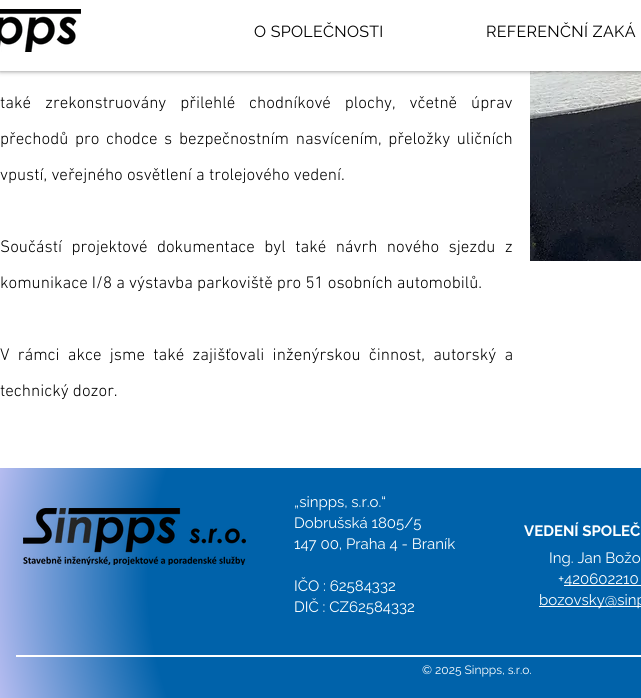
#include <cairo.h>
#include <math.h>
#include <stddef.h>


static void rgb(cairo_t *cr, int r, int g, int b)
{
	cairo_set_source_rgb(cr, r / 255.0, g / 255.0, b / 255.0);
}

static void face(cairo_t *cr, const char *family, double size, int italic, int bold)
{
	cairo_select_font_face(cr, family, italic ? CAIRO_FONT_SLANT_ITALIC : CAIRO_FONT_SLANT_NORMAL,
		bold ? CAIRO_FONT_WEIGHT_BOLD : CAIRO_FONT_WEIGHT_NORMAL);
	cairo_set_font_size(cr, size);
}

static void label(cairo_t *cr, double x, double y, const char *s)
{
	cairo_move_to(cr, x, y);
	cairo_show_text(cr, s);
}

static void tracked(cairo_t *cr, double x, double y, const char *s, double letter, double word)
{
	cairo_move_to(cr, x, y);
	while (*s) {
		char ch[5] = {0};
		int n = 0;
		do ch[n++] = *s++; while ((*s & 0xC0) == 0x80);
		cairo_show_text(cr, ch);
		cairo_rel_move_to(cr, letter + word * (*ch == ' '), 0);
	}
}

static void rect(cairo_t *cr, double x, double y, double w, double h)
{
	cairo_rectangle(cr, x, y, w, h);
	cairo_fill(cr);
}

static void rrect(cairo_t *cr, double x, double y, double w, double h, double r)
{
	cairo_new_sub_path(cr);
	cairo_arc(cr, x + w - r, y + h - r, r, 0, M_PI / 2);
	cairo_arc(cr, x + r, y + h - r, r, M_PI / 2, M_PI);
	cairo_arc(cr, x + r, y + r, r, M_PI, 1.5 * M_PI);
	cairo_arc(cr, x + w - r, y + r, r, 1.5 * M_PI, 2 * M_PI);
	cairo_close_path(cr);
}

static void soft_shadow(cairo_t *cr, double x, double y, double w, double h, double r, double blur, double alpha)
{
	cairo_push_group_with_content(cr, CAIRO_CONTENT_ALPHA);
	cairo_set_operator(cr, CAIRO_OPERATOR_SOURCE);
	for (int i = 15; i >= -15 && fmin(w, h) + blur * i / 3 > 0; i -= 2) {
		double e = blur * i / 6;
		cairo_set_source_rgba(cr, 0, 0, 0, alpha * erfc((i - 1) / 8.5) / 2);
		rrect(cr, x - e, y - e, w + 2 * e, h + 2 * e, fmax(0, fmin(r + e + blur * .6, fmin(w, h) / 2 + e)));
		cairo_fill(cr);
	}
	cairo_pattern_t *soft = cairo_pop_group(cr);
	cairo_mask(cr, soft);
	cairo_pattern_destroy(soft);
}

static void image(cairo_t *cr, const char *path, double x, double y, double w, double h)
{
	cairo_surface_t *image = cairo_image_surface_create_from_png(path);
	cairo_save(cr);
	cairo_set_source_surface(cr, image, x, y);
	cairo_rectangle(cr, x, y, w, h);
	cairo_fill(cr);
	cairo_restore(cr);
	cairo_surface_destroy(image);
}

static void draw(cairo_t *cr) {
	cairo_pattern_t *gradient;
	rgb(cr, 255, 255, 255);
	cairo_paint(cr);
	image(cr, "image1.png", 530, 71, 111, 190);
	rgb(cr, 0, 0, 0);
	soft_shadow(cr, 0, 0, 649, 71, 0, 2.5, 0.5);
	rgb(cr, 255, 255, 255);
	rect(cr, 0, 0, 641, 71);
	image(cr, "image0.png", 0, 9, 81, 43);
	face(cr, "Raleway", 16, 0, 0);
	rgb(cr, 0, 0, 0);
	tracked(cr, 254, 37, "O SPOLEČNOSTI", 0.3, 0);
	tracked(cr, 486, 37, "REFERENČNÍ ZAKÁ", 0.3, 0);
	face(cr, "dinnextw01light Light", 17, 0, 0);
	tracked(cr, 0, 108, "také zrekonstruovány přilehlé chodníkové plochy, včetně úprav", 0, 9.75);
	tracked(cr, 0, 144, "přechodů pro chodce s bezpečnostním nasvícením, přeložky uličních", 0, 2.5);
	label(cr, 0, 180, "vpustí, veřejného osvětlení a trolejového vedení.");
	tracked(cr, 0, 252, "Součástí projektové dokumentace byl také návrh nového sjezdu z", 0, 5.25);
	label(cr, 0, 288, "komunikace I/8 a výstavba parkoviště pro 51 osobních automobilů.");
	tracked(cr, 0, 360, "V rámci akce jsme také zajišťovali inženýrskou činnost, autorský a", 0, 4);
	label(cr, 0, 396, "technický dozor.");
	gradient = cairo_pattern_create_radial(490, 583, 0, 490, 583, 503);
	cairo_pattern_add_color_stop_rgba(gradient, 0.68, 0, 0.384, 0.667, 1);
	cairo_pattern_add_color_stop_rgba(gradient, 1, 0.71, 0.737, 0.941, 1);
	cairo_set_source(cr, gradient);
	cairo_pattern_destroy(gradient);
	rect(cr, 0, 468, 641, 230);
	image(cr, "image2.png", 23, 508, 223, 57);
	face(cr, "Raleway", 15, 0, 0);
	rgb(cr, 255, 255, 255);
	label(cr, 294, 507, "„sinpps, s.r.o.“");
	label(cr, 294, 528, "Dobrušská 1805/5");
	label(cr, 294, 549, "147 00, Praha 4 - Braník");
	label(cr, 294, 591, "IČO : 62584332");
	label(cr, 294, 612, "DIČ : CZ62584332");
	face(cr, "Raleway", 15, 0, 1);
	label(cr, 524, 536, "VEDENÍ SPOLEČ");
	face(cr, "Raleway", 15, 0, 0);
	label(cr, 549, 563, "Ing. Jan Božo");
	label(cr, 558, 584, "+");
	rect(cr, 564, 585, 77, 1);
	label(cr, 564, 584, "420602210");
	rect(cr, 539, 606, 102, 1);
	label(cr, 539, 605, "bozovsky@sinp");
	rect(cr, 16, 655, 625, 2);
	face(cr, "Raleway", 12, 0, 0);
	label(cr, 422, 674, "© 2025 Sinpps, s.r.o.");
}

int main(void) {
	cairo_surface_t *surface = cairo_image_surface_create(CAIRO_FORMAT_RGB24, 641, 698);
	cairo_t *cr = cairo_create(surface);
	cairo_font_options_t *options = cairo_font_options_create();
	cairo_font_options_set_hint_metrics(options, CAIRO_HINT_METRICS_OFF);
	cairo_font_options_set_hint_style(options, CAIRO_HINT_STYLE_NONE);
	cairo_set_font_options(cr, options);
	cairo_set_miter_limit(cr, 4);
	draw(cr);
	cairo_surface_write_to_png(surface, "render.png");
	cairo_font_options_destroy(options);
	cairo_destroy(cr);
	cairo_surface_destroy(surface);
	return 0;
}
